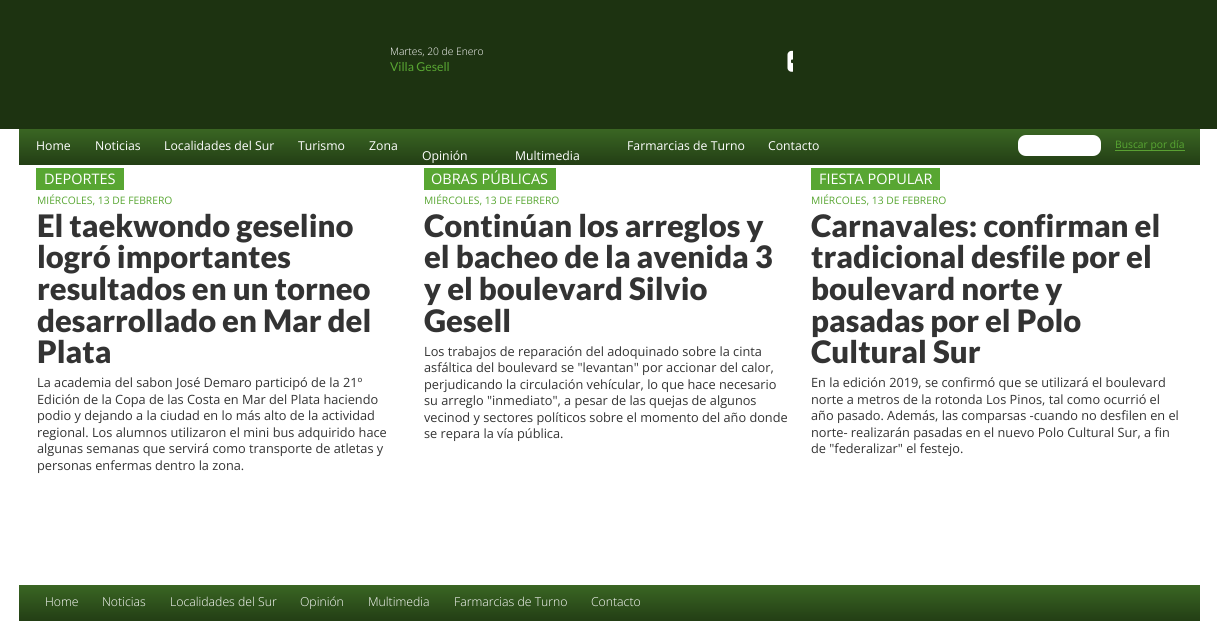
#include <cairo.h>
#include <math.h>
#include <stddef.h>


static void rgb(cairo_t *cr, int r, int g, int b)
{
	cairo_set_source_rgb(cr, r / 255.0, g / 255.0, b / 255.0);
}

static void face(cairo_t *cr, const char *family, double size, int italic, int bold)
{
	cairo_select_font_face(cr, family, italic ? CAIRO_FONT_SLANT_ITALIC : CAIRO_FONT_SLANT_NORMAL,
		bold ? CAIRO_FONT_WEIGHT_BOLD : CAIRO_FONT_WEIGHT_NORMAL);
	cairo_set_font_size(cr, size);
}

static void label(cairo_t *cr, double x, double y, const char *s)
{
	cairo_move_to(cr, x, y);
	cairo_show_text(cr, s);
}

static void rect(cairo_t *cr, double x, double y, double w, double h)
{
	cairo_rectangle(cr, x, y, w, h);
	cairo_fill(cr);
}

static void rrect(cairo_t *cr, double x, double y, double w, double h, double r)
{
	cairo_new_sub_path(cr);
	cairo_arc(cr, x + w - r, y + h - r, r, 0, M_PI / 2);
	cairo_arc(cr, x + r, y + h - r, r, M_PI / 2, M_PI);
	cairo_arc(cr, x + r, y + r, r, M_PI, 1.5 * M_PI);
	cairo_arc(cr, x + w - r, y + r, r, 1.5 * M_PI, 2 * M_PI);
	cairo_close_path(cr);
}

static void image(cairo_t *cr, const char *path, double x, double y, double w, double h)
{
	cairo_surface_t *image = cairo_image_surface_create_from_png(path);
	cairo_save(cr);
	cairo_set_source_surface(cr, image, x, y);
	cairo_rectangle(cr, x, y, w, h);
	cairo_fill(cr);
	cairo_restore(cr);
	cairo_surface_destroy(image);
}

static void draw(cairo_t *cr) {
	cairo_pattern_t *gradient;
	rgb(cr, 255, 255, 255);
	cairo_paint(cr);
	rgb(cr, 29, 51, 17);
	rect(cr, 0, 0, 1217, 129);
	face(cr, "Open Sans Light", 10.3, 0, 0);
	rgb(cr, 255, 255, 255);
	label(cr, 390, 55, "Martes, 20 de Enero");
	face(cr, "Lato", 12.25, 0, 0);
	rgb(cr, 88, 166, 50);
	label(cr, 390, 71, "Villa Gesell");
	image(cr, "image0.png", 787, 50, 6, 22);
	gradient = cairo_pattern_create_linear(609, 165, 609, 129);
	cairo_pattern_add_color_stop_rgba(gradient, 0, 0.137, 0.243, 0.082, 1);
	cairo_pattern_add_color_stop_rgba(gradient, 1, 0.227, 0.4, 0.137, 1);
	cairo_set_source(cr, gradient);
	cairo_pattern_destroy(gradient);
	rect(cr, 19, 129, 1181, 36);
	face(cr, "Open Sans", 12.25, 0, 0);
	rgb(cr, 255, 255, 255);
	label(cr, 36, 150, "Home");
	label(cr, 95, 150, "Noticias");
	label(cr, 164, 150, "Localidades del Sur");
	label(cr, 298, 150, "Turismo");
	label(cr, 369, 150, "Zona");
	label(cr, 627, 150, "Farmarcias de Turno");
	label(cr, 768, 150, "Contacto");
	label(cr, 422, 160, "Opinión");
	label(cr, 515, 160, "Multimedia");
	rrect(cr, 1018, 135, 83, 21, 8);
	cairo_fill(cr);
	rgb(cr, 90, 161, 51);
	rect(cr, 1115, 150, 70, 1);
	face(cr, "Open Sans", 10.3, 0, 0);
	rgb(cr, 88, 166, 50);
	label(cr, 1115, 148, "Buscar por día");
	rect(cr, 36, 168, 88, 22);
	face(cr, "Open Sans", 14.5, 0, 0);
	rgb(cr, 255, 255, 255);
	label(cr, 44, 184, "DEPORTES");
	face(cr, "Open Sans", 10.3, 0, 0);
	rgb(cr, 88, 166, 50);
	label(cr, 37, 204, "MIÉRCOLES, 13 DE FEBRERO");
	face(cr, "Lato Black", 31, 0, 0);
	rgb(cr, 51, 51, 51);
	label(cr, 37, 237, "El taekwondo geselino");
	label(cr, 37, 268, "logró importantes");
	label(cr, 37, 300, "resultados en un torneo");
	label(cr, 37, 332, "desarrollado en Mar del");
	label(cr, 37, 363, "Plata");
	face(cr, "Open Sans", 12.75, 0, 0);
	label(cr, 37, 387, "La academia del sabon José Demaro participó de la 21º");
	label(cr, 37, 404, "Edición de la Copa de las Costa en Mar del Plata haciendo");
	label(cr, 37, 420, "podio y dejando a la ciudad en lo más alto de la actividad");
	label(cr, 37, 437, "regional. Los alumnos utilizaron el mini bus adquirido hace");
	label(cr, 37, 453, "algunas semanas que servirá como transporte de atletas y");
	label(cr, 37, 470, "personas enfermas dentro la zona.");
	rgb(cr, 88, 166, 50);
	rect(cr, 424, 168, 132, 22);
	face(cr, "Open Sans", 14.5, 0, 0);
	rgb(cr, 255, 255, 255);
	label(cr, 431, 184, "OBRAS PÚBLICAS");
	face(cr, "Open Sans", 10.3, 0, 0);
	rgb(cr, 88, 166, 50);
	label(cr, 424, 204, "MIÉRCOLES, 13 DE FEBRERO");
	face(cr, "Lato Black", 31, 0, 0);
	rgb(cr, 51, 51, 51);
	label(cr, 424, 237, "Continúan los arreglos y");
	label(cr, 424, 268, "el bacheo de la avenida 3");
	label(cr, 424, 300, "y el boulevard Silvio");
	label(cr, 424, 332, "Gesell");
	face(cr, "Open Sans", 12.75, 0, 0);
	label(cr, 424, 356, "Los trabajos de reparación del adoquinado sobre la cinta");
	label(cr, 424, 372, "asfáltica del boulevard se \"levantan\" por accionar del calor,");
	label(cr, 424, 389, "perjudicando la circulación vehícular, lo que hace necesario");
	label(cr, 424, 405, "su arreglo \"inmediato\", a pesar de las quejas de algunos");
	label(cr, 424, 422, "vecinod y sectores políticos sobre el momento del año donde");
	label(cr, 424, 438, "se repara la vía pública.");
	rgb(cr, 88, 166, 50);
	rect(cr, 811, 168, 129, 22);
	face(cr, "Open Sans", 14.5, 0, 0);
	rgb(cr, 255, 255, 255);
	label(cr, 819, 184, "FIESTA POPULAR");
	face(cr, "Open Sans", 10.3, 0, 0);
	rgb(cr, 88, 166, 50);
	label(cr, 811, 204, "MIÉRCOLES, 13 DE FEBRERO");
	face(cr, "Lato Black", 31, 0, 0);
	rgb(cr, 51, 51, 51);
	label(cr, 811, 237, "Carnavales: confirman el");
	label(cr, 811, 268, "tradicional desfile por el");
	label(cr, 811, 300, "boulevard norte y");
	label(cr, 811, 332, "pasadas por el Polo");
	label(cr, 811, 363, "Cultural Sur");
	face(cr, "Open Sans", 12.75, 0, 0);
	label(cr, 811, 387, "En la edición 2019, se confirmó que se utilizará el boulevard");
	label(cr, 811, 404, "norte a metros de la rotonda Los Pinos, tal como ocurrió el");
	label(cr, 811, 420, "año pasado. Además, las comparsas -cuando no desfilen en el");
	label(cr, 811, 437, "norte- realizarán pasadas en el nuevo Polo Cultural Sur, a fin");
	label(cr, 811, 453, "de \"federalizar\" el festejo.");
	gradient = cairo_pattern_create_linear(609, 621, 609, 585);
	cairo_pattern_add_color_stop_rgba(gradient, 0, 0.137, 0.243, 0.082, 1);
	cairo_pattern_add_color_stop_rgba(gradient, 1, 0.227, 0.4, 0.137, 1);
	cairo_set_source(cr, gradient);
	cairo_pattern_destroy(gradient);
	rect(cr, 19, 585, 1181, 36);
	face(cr, "Open Sans Light", 12.25, 0, 0);
	rgb(cr, 255, 255, 255);
	label(cr, 45, 606, "Home");
	label(cr, 102, 606, "Noticias");
	label(cr, 170, 606, "Localidades del Sur");
	label(cr, 300, 606, "Opinión");
	label(cr, 368, 606, "Multimedia");
	label(cr, 454, 606, "Farmarcias de Turno");
	label(cr, 591, 606, "Contacto");
}

int main(void) {
	cairo_surface_t *surface = cairo_image_surface_create(CAIRO_FORMAT_RGB24, 1217, 638);
	cairo_t *cr = cairo_create(surface);
	cairo_font_options_t *options = cairo_font_options_create();
	cairo_font_options_set_hint_metrics(options, CAIRO_HINT_METRICS_OFF);
	cairo_font_options_set_hint_style(options, CAIRO_HINT_STYLE_NONE);
	cairo_set_font_options(cr, options);
	cairo_set_miter_limit(cr, 4);
	draw(cr);
	cairo_surface_write_to_png(surface, "render.png");
	cairo_font_options_destroy(options);
	cairo_destroy(cr);
	cairo_surface_destroy(surface);
	return 0;
}
